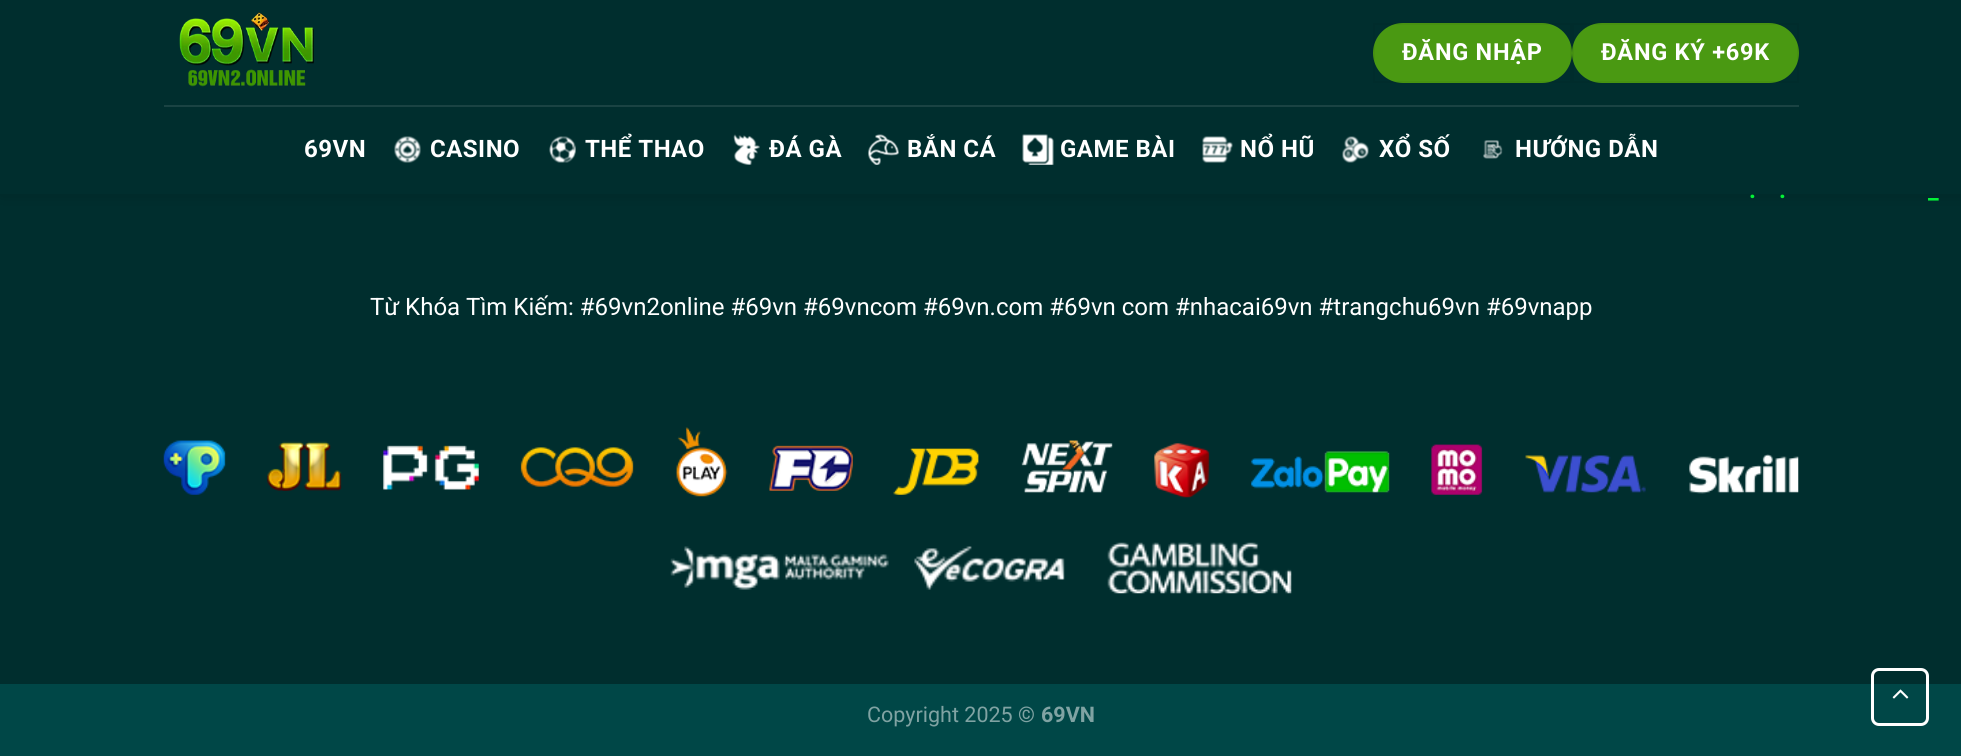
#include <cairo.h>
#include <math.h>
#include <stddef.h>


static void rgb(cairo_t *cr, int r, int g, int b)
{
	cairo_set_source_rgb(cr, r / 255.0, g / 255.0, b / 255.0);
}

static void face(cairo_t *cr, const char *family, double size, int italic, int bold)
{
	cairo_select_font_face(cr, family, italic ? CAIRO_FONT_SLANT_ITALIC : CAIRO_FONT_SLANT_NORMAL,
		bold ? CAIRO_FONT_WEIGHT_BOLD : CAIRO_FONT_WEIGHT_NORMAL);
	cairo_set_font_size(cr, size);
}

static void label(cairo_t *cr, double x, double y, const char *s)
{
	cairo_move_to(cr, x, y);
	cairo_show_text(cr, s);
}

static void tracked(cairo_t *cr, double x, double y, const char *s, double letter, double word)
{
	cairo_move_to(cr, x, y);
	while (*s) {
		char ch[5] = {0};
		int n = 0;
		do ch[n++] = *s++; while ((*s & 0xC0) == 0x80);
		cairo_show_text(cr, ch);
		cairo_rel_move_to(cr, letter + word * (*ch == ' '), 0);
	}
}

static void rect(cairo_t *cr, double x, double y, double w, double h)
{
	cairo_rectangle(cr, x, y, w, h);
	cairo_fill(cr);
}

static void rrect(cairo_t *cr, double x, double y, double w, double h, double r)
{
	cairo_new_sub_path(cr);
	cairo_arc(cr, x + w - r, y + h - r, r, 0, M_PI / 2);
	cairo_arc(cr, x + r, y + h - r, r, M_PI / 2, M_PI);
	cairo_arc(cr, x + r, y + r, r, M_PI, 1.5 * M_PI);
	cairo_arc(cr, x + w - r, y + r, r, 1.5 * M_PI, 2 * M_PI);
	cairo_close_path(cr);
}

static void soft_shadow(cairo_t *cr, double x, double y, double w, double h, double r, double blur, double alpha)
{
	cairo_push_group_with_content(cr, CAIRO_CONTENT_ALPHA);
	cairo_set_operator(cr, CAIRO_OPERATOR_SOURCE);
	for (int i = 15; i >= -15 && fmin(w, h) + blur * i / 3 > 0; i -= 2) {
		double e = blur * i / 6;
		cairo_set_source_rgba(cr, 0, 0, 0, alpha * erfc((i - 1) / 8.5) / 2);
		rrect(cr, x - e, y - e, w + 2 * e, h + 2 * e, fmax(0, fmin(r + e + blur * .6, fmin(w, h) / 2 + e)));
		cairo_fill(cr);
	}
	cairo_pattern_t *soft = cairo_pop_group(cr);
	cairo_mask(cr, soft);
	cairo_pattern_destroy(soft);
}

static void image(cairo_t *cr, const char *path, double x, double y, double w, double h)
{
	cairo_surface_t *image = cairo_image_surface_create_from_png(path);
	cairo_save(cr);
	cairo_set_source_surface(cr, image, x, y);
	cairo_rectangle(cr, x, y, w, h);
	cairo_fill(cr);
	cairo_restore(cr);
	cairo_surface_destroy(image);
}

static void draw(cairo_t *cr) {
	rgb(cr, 0, 46, 46);
	cairo_paint(cr);
	rgb(cr, 0, 0, 0);
	soft_shadow(cr, 2, 2, 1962, 193, 0, 7.5, 0.15);
	rgb(cr, 0, 46, 46);
	rect(cr, 0, 0, 1961, 194);
	image(cr, "image0.png", 179, 12, 135, 75);
	rgb(cr, 74, 153, 18);
	rrect(cr, 1373, 23, 199, 60, 30);
	cairo_fill(cr);
	cairo_rectangle(cr, 1374, 24, 197, 58);
	cairo_set_source_rgba(cr, 0, 0, 0, 0.05);
	cairo_stroke(cr);
	face(cr, "Roboto", 23.5, 0, 1);
	rgb(cr, 255, 255, 255);
	tracked(cr, 1402, 60, "ĐĂNG NHẬP", 0.75, 0);
	rgb(cr, 74, 153, 18);
	rrect(cr, 1572, 23, 227, 60, 30);
	cairo_fill(cr);
	cairo_rectangle(cr, 1573, 24, 225, 58);
	cairo_set_source_rgba(cr, 0, 0, 0, 0.05);
	cairo_stroke(cr);
	rgb(cr, 255, 255, 255);
	tracked(cr, 1601, 60, "ĐĂNG KÝ +69K", 0.75, 0);
	rgb(cr, 26, 67, 67);
	rect(cr, 164, 105, 1635, 2);
	face(cr, "Roboto", 24, 0, 1);
	rgb(cr, 255, 255, 255);
	tracked(cr, 304, 157, "69VN", 0.5, 0);
	image(cr, "image1.png", 394, 136, 27, 27);
	tracked(cr, 430, 157, "CASINO", 0.5, 0);
	image(cr, "image2.png", 549, 136, 27, 27);
	tracked(cr, 585, 157, "THỂ THAO", 0.5, 0);
	image(cr, "image3.png", 733, 134, 27, 31);
	tracked(cr, 769, 157, "ĐÁ GÀ", 0.5, 0);
	image(cr, "image4.png", 868, 134, 31, 31);
	tracked(cr, 907, 157, "BẮN CÁ", 0.5, 0);
	image(cr, "image5.png", 1022, 134, 32, 31);
	tracked(cr, 1060, 157, "GAME BÀI", 0.5, 0);
	image(cr, "image6.png", 1202, 136, 31, 27);
	tracked(cr, 1240, 157, "NỔ HŨ", 0.5, 0);
	image(cr, "image7.png", 1342, 136, 27, 27);
	tracked(cr, 1379, 157, "XỔ SỐ", 0.5, 0);
	image(cr, "image8.png", 1483, 140, 20, 19);
	tracked(cr, 1515, 157, "HƯỚNG DẪN", 0.5, 0);
	rgb(cr, 3, 241, 55);
	label(cr, 1749, 198, ".");
	label(cr, 1779, 198, ".");
	label(cr, 1928, 198, "_");
	face(cr, "Roboto", 24, 0, 0);
	rgb(cr, 255, 255, 255);
	label(cr, 370, 315, "Từ Khóa Tìm Kiếm: #69vn2online #69vn #69vncom #69vn.com #69vn com #nhacai69vn #trangchu69vn #69vnapp");
	image(cr, "image9.png", 163, 427, 1636, 71);
	image(cr, "image10.png", 670, 542, 622, 52);
	rgb(cr, 0, 71, 71);
	rect(cr, 0, 684, 1961, 72);
	face(cr, "Roboto", 21.5, 0, 0);
	rgb(cr, 128, 163, 163);
	label(cr, 867, 722, "Copyright 2025 ©");
	face(cr, "Roboto", 21.5, 0, 1);
	label(cr, 1041, 722, "69VN");
	rrect(cr, 1872.5, 669.5, 55, 55, 6.5);
	rgb(cr, 255, 255, 255);
	cairo_set_line_width(cr, 3);
	cairo_stroke(cr);
	image(cr, "image11.png", 1892, 689, 17, 10);
}

int main(void) {
	cairo_surface_t *surface = cairo_image_surface_create(CAIRO_FORMAT_RGB24, 1961, 756);
	cairo_t *cr = cairo_create(surface);
	cairo_font_options_t *options = cairo_font_options_create();
	cairo_font_options_set_hint_metrics(options, CAIRO_HINT_METRICS_OFF);
	cairo_font_options_set_hint_style(options, CAIRO_HINT_STYLE_NONE);
	cairo_set_font_options(cr, options);
	cairo_set_miter_limit(cr, 4);
	draw(cr);
	cairo_surface_write_to_png(surface, "render.png");
	cairo_font_options_destroy(options);
	cairo_destroy(cr);
	cairo_surface_destroy(surface);
	return 0;
}
